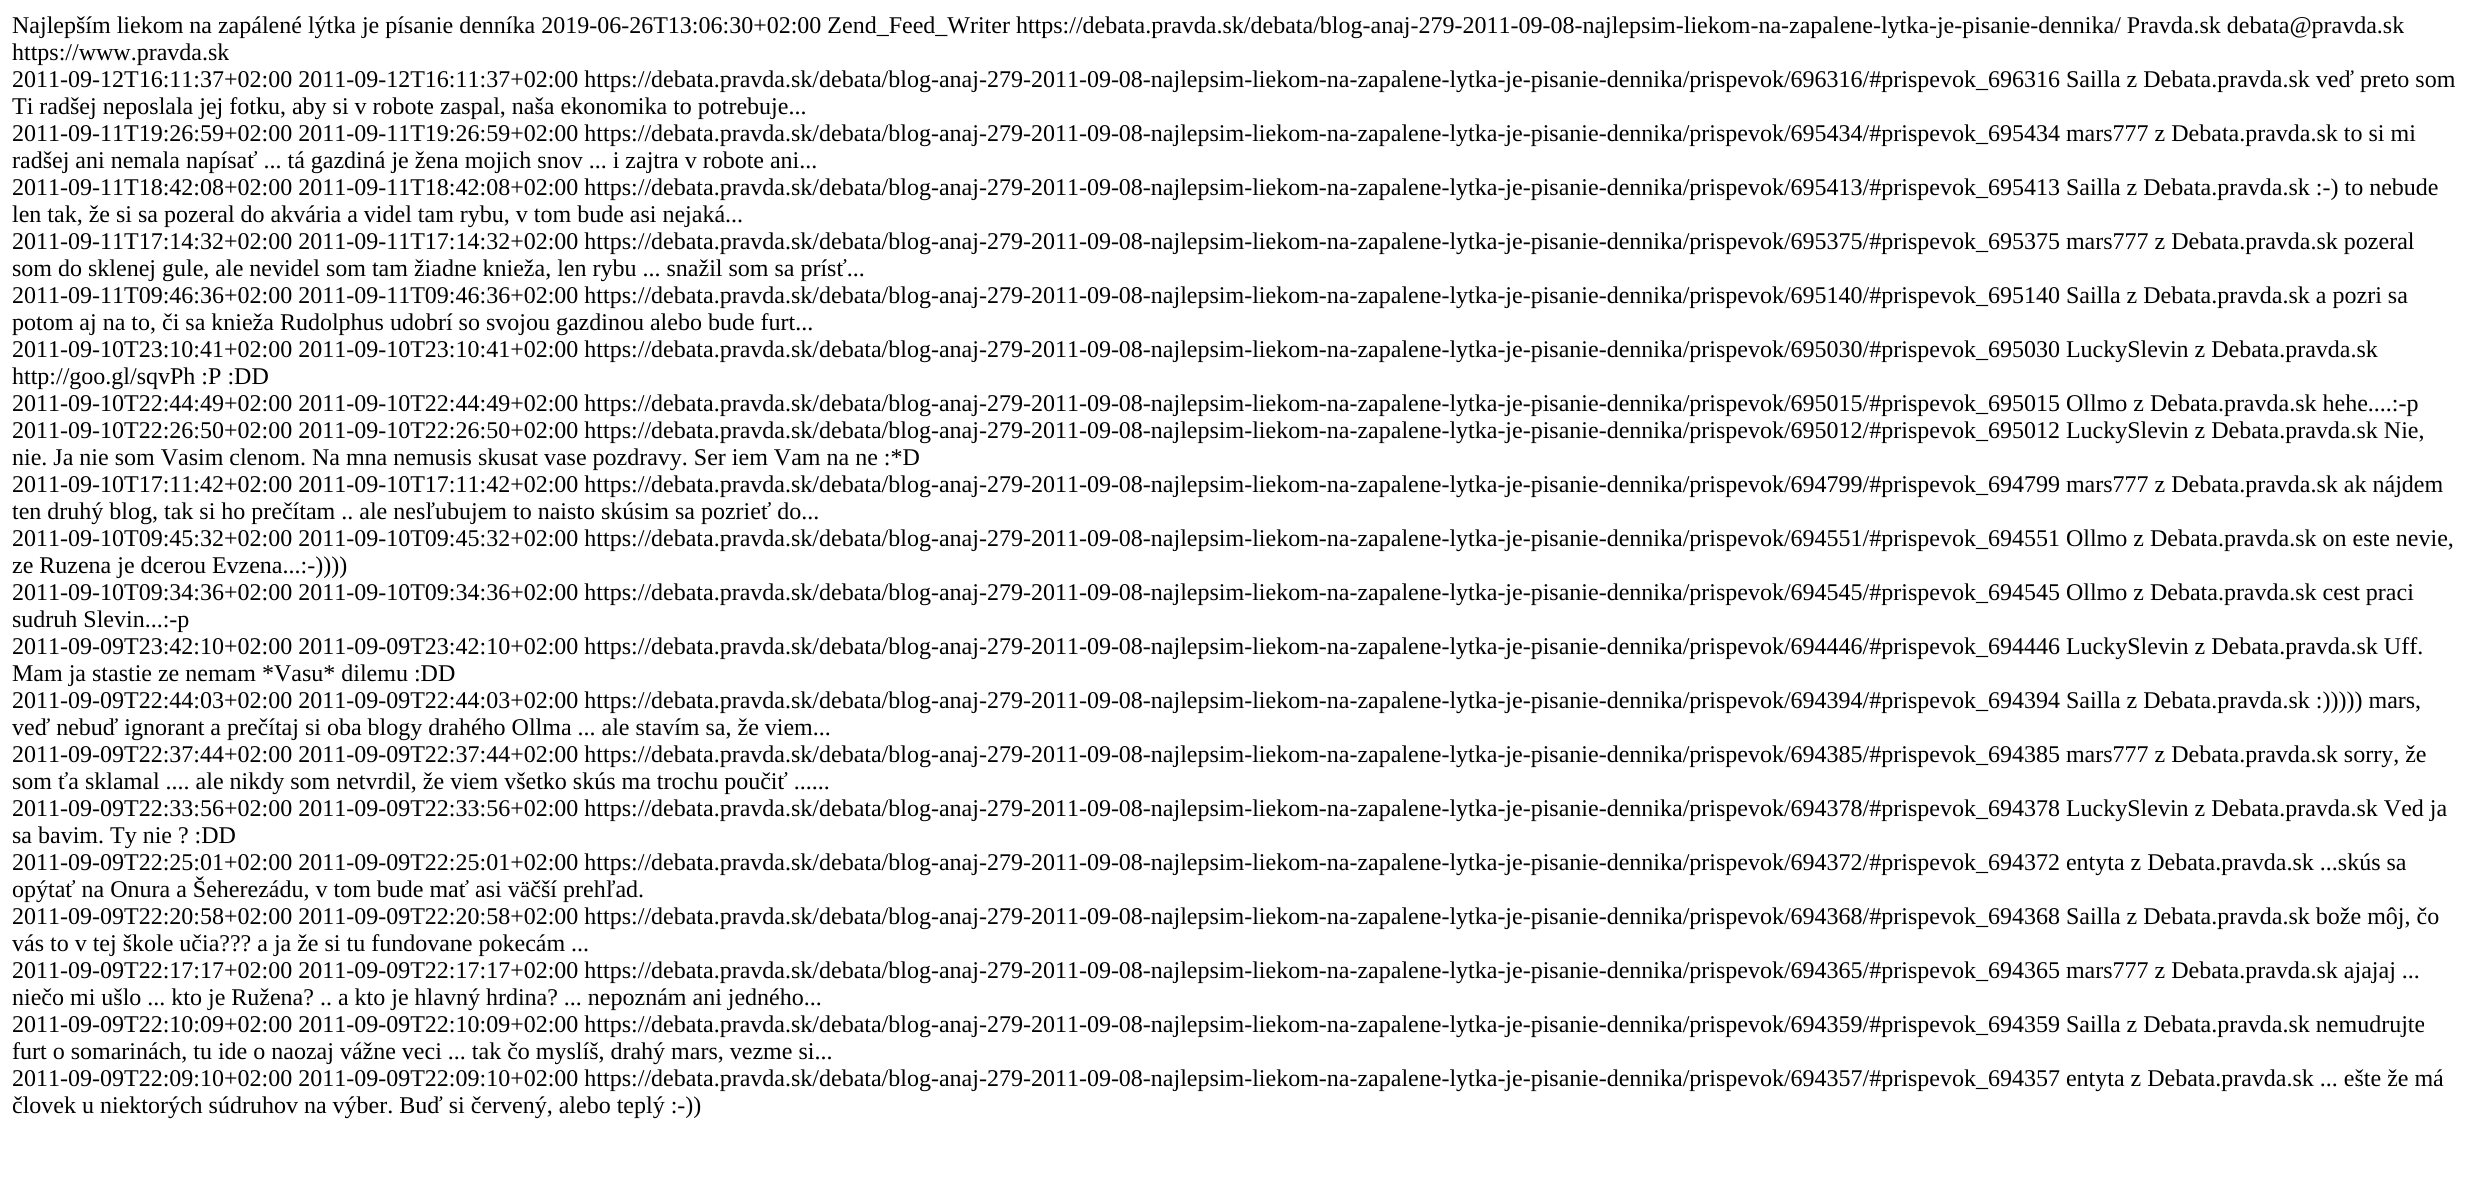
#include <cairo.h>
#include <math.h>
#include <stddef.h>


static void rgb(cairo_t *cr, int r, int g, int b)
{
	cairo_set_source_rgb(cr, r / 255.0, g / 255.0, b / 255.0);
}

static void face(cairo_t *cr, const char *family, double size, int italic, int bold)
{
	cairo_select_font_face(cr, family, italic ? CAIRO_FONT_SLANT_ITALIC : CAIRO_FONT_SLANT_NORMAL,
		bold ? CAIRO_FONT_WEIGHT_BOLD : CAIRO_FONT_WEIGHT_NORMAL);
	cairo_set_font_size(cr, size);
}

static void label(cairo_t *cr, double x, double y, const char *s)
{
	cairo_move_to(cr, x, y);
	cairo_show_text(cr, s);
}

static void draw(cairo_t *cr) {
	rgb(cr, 255, 255, 255);
	cairo_paint(cr);
	face(cr, "Liberation Serif", 24, 0, 0);
	rgb(cr, 0, 0, 0);
	label(cr, 12, 33, "Najlepším liekom na zapálené lýtka je písanie denníka 2019-06-26T13:06:30+02:00 Zend_Feed_Writer https://debata.pravda.sk/debata/blog-anaj-279-2011-09-08-najlepsim-liekom-na-zapalene-lytka-je-pisanie-dennika/ Pravda.sk debata@pravda.sk");
	label(cr, 12, 60, "https://www.pravda.sk");
	label(cr, 12, 87, "2011-09-12T16:11:37+02:00 2011-09-12T16:11:37+02:00 https://debata.pravda.sk/debata/blog-anaj-279-2011-09-08-najlepsim-liekom-na-zapalene-lytka-je-pisanie-dennika/prispevok/696316/#prispevok_696316 Sailla z Debata.pravda.sk veď preto som");
	label(cr, 12, 114, "Ti radšej neposlala jej fotku, aby si v robote zaspal, naša ekonomika to potrebuje...");
	label(cr, 12, 141, "2011-09-11T19:26:59+02:00 2011-09-11T19:26:59+02:00 https://debata.pravda.sk/debata/blog-anaj-279-2011-09-08-najlepsim-liekom-na-zapalene-lytka-je-pisanie-dennika/prispevok/695434/#prispevok_695434 mars777 z Debata.pravda.sk to si mi");
	label(cr, 12, 168, "radšej ani nemala napísať ... tá gazdiná je žena mojich snov ... i zajtra v robote ani...");
	label(cr, 12, 195, "2011-09-11T18:42:08+02:00 2011-09-11T18:42:08+02:00 https://debata.pravda.sk/debata/blog-anaj-279-2011-09-08-najlepsim-liekom-na-zapalene-lytka-je-pisanie-dennika/prispevok/695413/#prispevok_695413 Sailla z Debata.pravda.sk :-) to nebude");
	label(cr, 12, 222, "len tak, že si sa pozeral do akvária a videl tam rybu, v tom bude asi nejaká...");
	label(cr, 12, 249, "2011-09-11T17:14:32+02:00 2011-09-11T17:14:32+02:00 https://debata.pravda.sk/debata/blog-anaj-279-2011-09-08-najlepsim-liekom-na-zapalene-lytka-je-pisanie-dennika/prispevok/695375/#prispevok_695375 mars777 z Debata.pravda.sk pozeral");
	label(cr, 12, 276, "som do sklenej gule, ale nevidel som tam žiadne knieža, len rybu ... snažil som sa prísť...");
	label(cr, 12, 303, "2011-09-11T09:46:36+02:00 2011-09-11T09:46:36+02:00 https://debata.pravda.sk/debata/blog-anaj-279-2011-09-08-najlepsim-liekom-na-zapalene-lytka-je-pisanie-dennika/prispevok/695140/#prispevok_695140 Sailla z Debata.pravda.sk a pozri sa");
	label(cr, 12, 330, "potom aj na to, či sa knieža Rudolphus udobrí so svojou gazdinou alebo bude furt...");
	label(cr, 12, 357, "2011-09-10T23:10:41+02:00 2011-09-10T23:10:41+02:00 https://debata.pravda.sk/debata/blog-anaj-279-2011-09-08-najlepsim-liekom-na-zapalene-lytka-je-pisanie-dennika/prispevok/695030/#prispevok_695030 LuckySlevin z Debata.pravda.sk");
	label(cr, 12, 384, "http://goo.gl/sqvPh :P :DD");
	label(cr, 12, 411, "2011-09-10T22:44:49+02:00 2011-09-10T22:44:49+02:00 https://debata.pravda.sk/debata/blog-anaj-279-2011-09-08-najlepsim-liekom-na-zapalene-lytka-je-pisanie-dennika/prispevok/695015/#prispevok_695015 Ollmo z Debata.pravda.sk hehe....:-p");
	label(cr, 12, 438, "2011-09-10T22:26:50+02:00 2011-09-10T22:26:50+02:00 https://debata.pravda.sk/debata/blog-anaj-279-2011-09-08-najlepsim-liekom-na-zapalene-lytka-je-pisanie-dennika/prispevok/695012/#prispevok_695012 LuckySlevin z Debata.pravda.sk Nie,");
	label(cr, 12, 465, "nie. Ja nie som Vasim clenom. Na mna nemusis skusat vase pozdravy. Ser iem Vam na ne :*D");
	label(cr, 12, 492, "2011-09-10T17:11:42+02:00 2011-09-10T17:11:42+02:00 https://debata.pravda.sk/debata/blog-anaj-279-2011-09-08-najlepsim-liekom-na-zapalene-lytka-je-pisanie-dennika/prispevok/694799/#prispevok_694799 mars777 z Debata.pravda.sk ak nájdem");
	label(cr, 12, 519, "ten druhý blog, tak si ho prečítam .. ale nesľubujem to naisto skúsim sa pozrieť do...");
	label(cr, 12, 546, "2011-09-10T09:45:32+02:00 2011-09-10T09:45:32+02:00 https://debata.pravda.sk/debata/blog-anaj-279-2011-09-08-najlepsim-liekom-na-zapalene-lytka-je-pisanie-dennika/prispevok/694551/#prispevok_694551 Ollmo z Debata.pravda.sk on este nevie,");
	label(cr, 12, 573, "ze Ruzena je dcerou Evzena...:-))))");
	label(cr, 12, 600, "2011-09-10T09:34:36+02:00 2011-09-10T09:34:36+02:00 https://debata.pravda.sk/debata/blog-anaj-279-2011-09-08-najlepsim-liekom-na-zapalene-lytka-je-pisanie-dennika/prispevok/694545/#prispevok_694545 Ollmo z Debata.pravda.sk cest praci");
	label(cr, 12, 627, "sudruh Slevin...:-p");
	label(cr, 12, 654, "2011-09-09T23:42:10+02:00 2011-09-09T23:42:10+02:00 https://debata.pravda.sk/debata/blog-anaj-279-2011-09-08-najlepsim-liekom-na-zapalene-lytka-je-pisanie-dennika/prispevok/694446/#prispevok_694446 LuckySlevin z Debata.pravda.sk Uff.");
	label(cr, 12, 681, "Mam ja stastie ze nemam *Vasu* dilemu :DD");
	label(cr, 12, 708, "2011-09-09T22:44:03+02:00 2011-09-09T22:44:03+02:00 https://debata.pravda.sk/debata/blog-anaj-279-2011-09-08-najlepsim-liekom-na-zapalene-lytka-je-pisanie-dennika/prispevok/694394/#prispevok_694394 Sailla z Debata.pravda.sk :))))) mars,");
	label(cr, 12, 735, "veď nebuď ignorant a prečítaj si oba blogy drahého Ollma ... ale stavím sa, že viem...");
	label(cr, 12, 762, "2011-09-09T22:37:44+02:00 2011-09-09T22:37:44+02:00 https://debata.pravda.sk/debata/blog-anaj-279-2011-09-08-najlepsim-liekom-na-zapalene-lytka-je-pisanie-dennika/prispevok/694385/#prispevok_694385 mars777 z Debata.pravda.sk sorry, že");
	label(cr, 12, 789, "som ťa sklamal .... ale nikdy som netvrdil, že viem všetko skús ma trochu poučiť ......");
	label(cr, 12, 816, "2011-09-09T22:33:56+02:00 2011-09-09T22:33:56+02:00 https://debata.pravda.sk/debata/blog-anaj-279-2011-09-08-najlepsim-liekom-na-zapalene-lytka-je-pisanie-dennika/prispevok/694378/#prispevok_694378 LuckySlevin z Debata.pravda.sk Ved ja");
	label(cr, 12, 843, "sa bavim. Ty nie ? :DD");
	label(cr, 12, 870, "2011-09-09T22:25:01+02:00 2011-09-09T22:25:01+02:00 https://debata.pravda.sk/debata/blog-anaj-279-2011-09-08-najlepsim-liekom-na-zapalene-lytka-je-pisanie-dennika/prispevok/694372/#prispevok_694372 entyta z Debata.pravda.sk ...skús sa");
	label(cr, 12, 897, "opýtať na Onura a Šeherezádu, v tom bude mať asi väčší prehľad.");
	label(cr, 12, 924, "2011-09-09T22:20:58+02:00 2011-09-09T22:20:58+02:00 https://debata.pravda.sk/debata/blog-anaj-279-2011-09-08-najlepsim-liekom-na-zapalene-lytka-je-pisanie-dennika/prispevok/694368/#prispevok_694368 Sailla z Debata.pravda.sk bože môj, čo");
	label(cr, 12, 951, "vás to v tej škole učia?\077? a ja že si tu fundovane pokecám ...");
	label(cr, 12, 978, "2011-09-09T22:17:17+02:00 2011-09-09T22:17:17+02:00 https://debata.pravda.sk/debata/blog-anaj-279-2011-09-08-najlepsim-liekom-na-zapalene-lytka-je-pisanie-dennika/prispevok/694365/#prispevok_694365 mars777 z Debata.pravda.sk ajajaj ...");
	label(cr, 12, 1005, "niečo mi ušlo ... kto je Ružena? .. a kto je hlavný hrdina? ... nepoznám ani jedného...");
	label(cr, 12, 1032, "2011-09-09T22:10:09+02:00 2011-09-09T22:10:09+02:00 https://debata.pravda.sk/debata/blog-anaj-279-2011-09-08-najlepsim-liekom-na-zapalene-lytka-je-pisanie-dennika/prispevok/694359/#prispevok_694359 Sailla z Debata.pravda.sk nemudrujte");
	label(cr, 12, 1059, "furt o somarinách, tu ide o naozaj vážne veci ... tak čo myslíš, drahý mars, vezme si...");
	label(cr, 12, 1086, "2011-09-09T22:09:10+02:00 2011-09-09T22:09:10+02:00 https://debata.pravda.sk/debata/blog-anaj-279-2011-09-08-najlepsim-liekom-na-zapalene-lytka-je-pisanie-dennika/prispevok/694357/#prispevok_694357 entyta z Debata.pravda.sk ... ešte že má");
	label(cr, 12, 1113, "človek u niektorých súdruhov na výber. Buď si červený, alebo teplý :-))");
}

int main(void) {
	cairo_surface_t *surface = cairo_image_surface_create(CAIRO_FORMAT_RGB24, 2471, 1195);
	cairo_t *cr = cairo_create(surface);
	cairo_font_options_t *options = cairo_font_options_create();
	cairo_font_options_set_hint_metrics(options, CAIRO_HINT_METRICS_OFF);
	cairo_font_options_set_hint_style(options, CAIRO_HINT_STYLE_NONE);
	cairo_set_font_options(cr, options);
	cairo_set_miter_limit(cr, 4);
	draw(cr);
	cairo_surface_write_to_png(surface, "render.png");
	cairo_font_options_destroy(options);
	cairo_destroy(cr);
	cairo_surface_destroy(surface);
	return 0;
}
